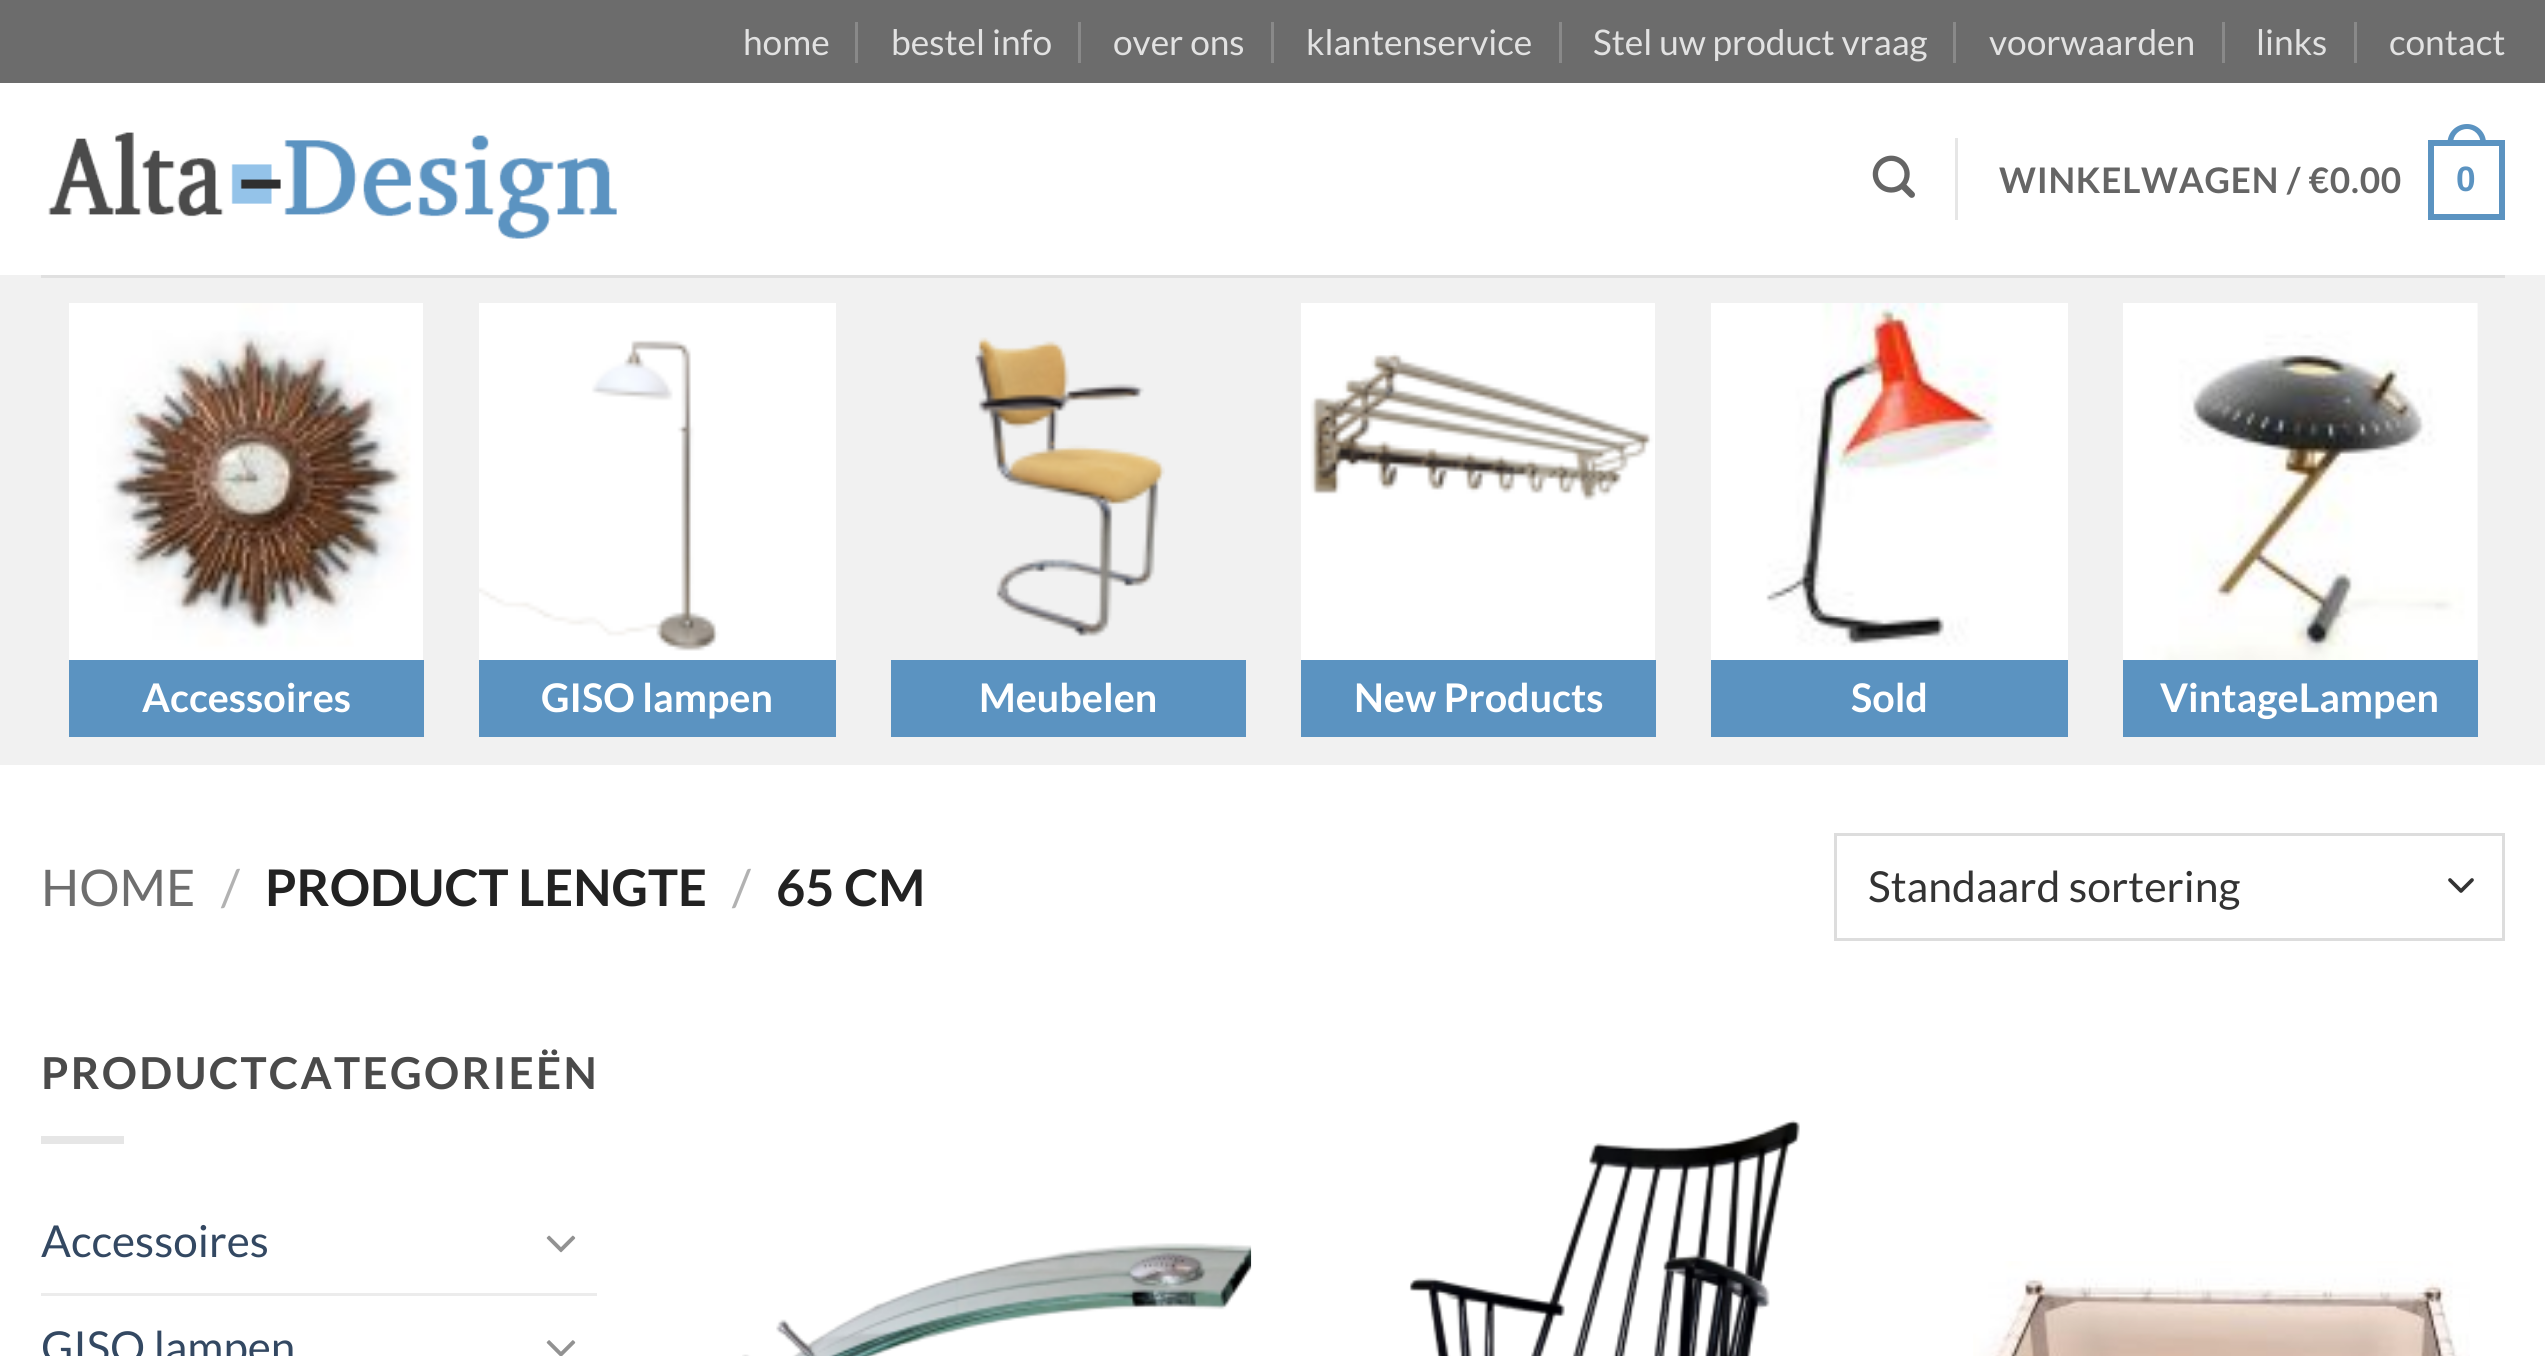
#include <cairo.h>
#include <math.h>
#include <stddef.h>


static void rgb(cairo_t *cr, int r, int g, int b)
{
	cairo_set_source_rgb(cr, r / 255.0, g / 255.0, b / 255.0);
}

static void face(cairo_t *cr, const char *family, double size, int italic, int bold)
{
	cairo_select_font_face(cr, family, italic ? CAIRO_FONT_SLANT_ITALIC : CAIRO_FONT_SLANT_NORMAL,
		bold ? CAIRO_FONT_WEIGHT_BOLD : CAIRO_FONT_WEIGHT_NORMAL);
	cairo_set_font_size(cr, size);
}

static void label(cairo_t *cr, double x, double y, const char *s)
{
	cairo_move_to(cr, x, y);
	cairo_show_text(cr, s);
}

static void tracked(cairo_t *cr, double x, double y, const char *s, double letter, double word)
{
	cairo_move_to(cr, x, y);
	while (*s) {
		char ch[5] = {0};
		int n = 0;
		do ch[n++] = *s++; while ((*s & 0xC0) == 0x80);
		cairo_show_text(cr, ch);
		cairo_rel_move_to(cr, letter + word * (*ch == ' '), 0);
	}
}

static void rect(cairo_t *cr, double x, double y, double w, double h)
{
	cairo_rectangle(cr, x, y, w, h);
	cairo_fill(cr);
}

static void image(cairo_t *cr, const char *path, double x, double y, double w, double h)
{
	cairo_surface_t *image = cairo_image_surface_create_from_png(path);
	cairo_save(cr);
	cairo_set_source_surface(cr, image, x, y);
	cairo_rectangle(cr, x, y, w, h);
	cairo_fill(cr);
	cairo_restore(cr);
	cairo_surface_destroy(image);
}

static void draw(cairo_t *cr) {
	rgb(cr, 255, 255, 255);
	cairo_paint(cr);
	rgb(cr, 108, 108, 108);
	rect(cr, 0, 0, 2545, 83);
	face(cr, "Lato", 35.25, 0, 0);
	rgb(cr, 226, 226, 226);
	label(cr, 743, 55, "home");
	rgb(cr, 137, 137, 137);
	rect(cr, 855, 22, 3, 41);
	rgb(cr, 226, 226, 226);
	label(cr, 891, 55, "bestel info");
	rgb(cr, 137, 137, 137);
	rect(cr, 1078, 22, 3, 41);
	rgb(cr, 226, 226, 226);
	label(cr, 1113, 55, "over ons");
	rgb(cr, 137, 137, 137);
	rect(cr, 1271, 22, 3, 41);
	rgb(cr, 226, 226, 226);
	label(cr, 1306, 55, "klantenservice");
	rgb(cr, 137, 137, 137);
	rect(cr, 1559, 22, 3, 41);
	rgb(cr, 226, 226, 226);
	label(cr, 1593, 55, "Stel uw product vraag");
	rgb(cr, 137, 137, 137);
	rect(cr, 1953, 22, 3, 41);
	rgb(cr, 226, 226, 226);
	label(cr, 1989, 55, "voorwaarden");
	rgb(cr, 137, 137, 137);
	rect(cr, 2222, 22, 3, 41);
	rgb(cr, 226, 226, 226);
	label(cr, 2256, 55, "links");
	rgb(cr, 137, 137, 137);
	rect(cr, 2354, 22, 3, 41);
	rgb(cr, 226, 226, 226);
	label(cr, 2389, 55, "contact");
	image(cr, "image0.png", 48, 132, 569, 107);
	image(cr, "image1.png", 1872, 155, 43, 43);
	rgb(cr, 230, 230, 230);
	rect(cr, 1955, 138, 3, 82);
	face(cr, "Lato", 35.25, 0, 1);
	rgb(cr, 101, 101, 101);
	tracked(cr, 1999, 193, "WINKELWAGEN / €0.00", 0.75, 0);
	cairo_rectangle(cr, 2431, 143, 71, 74);
	rgb(cr, 91, 147, 193);
	cairo_set_line_width(cr, 6);
	cairo_stroke(cr);
	cairo_set_fill_rule(cr, CAIRO_FILL_RULE_EVEN_ODD);
	cairo_new_path(cr);
	cairo_move_to(cr, 2467, 124);
	cairo_curve_to(cr, 2477.5, 124, 2486, 132.5, 2486, 143);
	cairo_line_to(cr, 2486, 146);
	cairo_line_to(cr, 2447.5, 146);
	cairo_line_to(cr, 2447.5, 143);
	cairo_curve_to(cr, 2447.5, 132.5, 2456, 124, 2467, 124);
	cairo_close_path(cr);
	cairo_move_to(cr, 2467, 129);
	cairo_curve_to(cr, 2474.5, 129, 2480.5, 135.5, 2480.5, 143);
	cairo_line_to(cr, 2480.5, 146);
	cairo_line_to(cr, 2453, 146);
	cairo_line_to(cr, 2453, 143);
	cairo_curve_to(cr, 2453, 135.5, 2459, 129, 2467, 129);
	cairo_close_path(cr);
	cairo_fill(cr);
	face(cr, "Liberation Sans", 35.25, 0, 1);
	tracked(cr, 2456, 191, "0", 0.75, 0);
	rgb(cr, 241, 241, 241);
	rect(cr, 0, 275, 2545, 490);
	rgb(cr, 224, 224, 224);
	rect(cr, 41, 275, 2464, 3);
	image(cr, "image2.png", 69, 303, 354, 357);
	rgb(cr, 91, 147, 193);
	rect(cr, 69, 660, 355, 77);
	face(cr, "Lato", 39.5, 0, 1);
	rgb(cr, 255, 255, 255);
	label(cr, 142, 712, "Accessoires");
	image(cr, "image3.png", 479, 303, 357, 357);
	rgb(cr, 91, 147, 193);
	rect(cr, 479, 660, 357, 77);
	rgb(cr, 255, 255, 255);
	label(cr, 541, 712, "GISO lampen");
	image(cr, "image4.png", 975, 337, 190, 300);
	rgb(cr, 91, 147, 193);
	rect(cr, 891, 660, 355, 77);
	rgb(cr, 255, 255, 255);
	label(cr, 979, 712, "Meubelen");
	image(cr, "image5.png", 1301, 303, 354, 357);
	rgb(cr, 91, 147, 193);
	rect(cr, 1301, 660, 355, 77);
	rgb(cr, 255, 255, 255);
	label(cr, 1354, 712, "New Products");
	image(cr, "image6.png", 1711, 303, 357, 357);
	rgb(cr, 91, 147, 193);
	rect(cr, 1711, 660, 357, 77);
	rgb(cr, 255, 255, 255);
	label(cr, 1851, 712, "Sold");
	image(cr, "image7.png", 2123, 303, 355, 357);
	rgb(cr, 91, 147, 193);
	rect(cr, 2123, 660, 355, 77);
	rgb(cr, 255, 255, 255);
	label(cr, 2160, 712, "VintageLampen");
	face(cr, "Lato", 50.5, 0, 0);
	rgb(cr, 110, 110, 110);
	label(cr, 41, 906, "HOME");
	rgb(cr, 178, 178, 178);
	label(cr, 221, 906, "/");
	face(cr, "Lato", 50.5, 0, 1);
	rgb(cr, 34, 34, 34);
	label(cr, 265, 906, "PRODUCT LENGTE");
	face(cr, "Lato", 50.5, 0, 0);
	rgb(cr, 178, 178, 178);
	label(cr, 732, 906, "/");
	face(cr, "Lato", 50.5, 0, 1);
	rgb(cr, 34, 34, 34);
	label(cr, 776, 906, "65 CM");
	cairo_new_path(cr);
	cairo_move_to(cr, 2450, 880);
	cairo_line_to(cr, 2461, 891);
	cairo_line_to(cr, 2472, 880);
	rgb(cr, 51, 51, 51);
	cairo_set_line_width(cr, 3.7);
	cairo_set_line_cap(cr, CAIRO_LINE_CAP_ROUND);
	cairo_set_line_join(cr, CAIRO_LINE_JOIN_ROUND);
	cairo_stroke(cr);
	cairo_rectangle(cr, 1835.5, 834.5, 668, 105);
	rgb(cr, 221, 221, 221);
	cairo_set_line_width(cr, 3);
	cairo_set_line_cap(cr, CAIRO_LINE_CAP_BUTT);
	cairo_set_line_join(cr, CAIRO_LINE_JOIN_MITER);
	cairo_stroke(cr);
	face(cr, "Lato", 42.75, 0, 0);
	rgb(cr, 51, 51, 51);
	label(cr, 1868, 902, "Standaard sortering");
	face(cr, "Lato", 44, 0, 1);
	rgb(cr, 74, 74, 74);
	tracked(cr, 41, 1089, "PRODUCTCATEGORIEËN", 2.25, 0);
	rgb(cr, 230, 230, 230);
	rect(cr, 41, 1136, 83, 8);
	face(cr, "Lato", 44, 0, 0);
	rgb(cr, 51, 72, 98);
	label(cr, 41, 1257, "Accessoires");
	image(cr, "image8.png", 546, 1235, 30, 18);
	rgb(cr, 236, 236, 236);
	rect(cr, 41, 1293, 556, 3);
	rgb(cr, 51, 72, 98);
	label(cr, 41, 1363, "GISO lampen");
	image(cr, "image9.png", 546, 1340, 30, 16);
	image(cr, "image10.png", 742, 1243, 510, 113);
	image(cr, "image11.png", 1409, 1120, 391, 236);
	image(cr, "image12.png", 1973, 1261, 497, 95);
}

int main(void) {
	cairo_surface_t *surface = cairo_image_surface_create(CAIRO_FORMAT_RGB24, 2545, 1356);
	cairo_t *cr = cairo_create(surface);
	cairo_font_options_t *options = cairo_font_options_create();
	cairo_font_options_set_hint_metrics(options, CAIRO_HINT_METRICS_OFF);
	cairo_font_options_set_hint_style(options, CAIRO_HINT_STYLE_NONE);
	cairo_set_font_options(cr, options);
	cairo_set_miter_limit(cr, 4);
	draw(cr);
	cairo_surface_write_to_png(surface, "render.png");
	cairo_font_options_destroy(options);
	cairo_destroy(cr);
	cairo_surface_destroy(surface);
	return 0;
}
